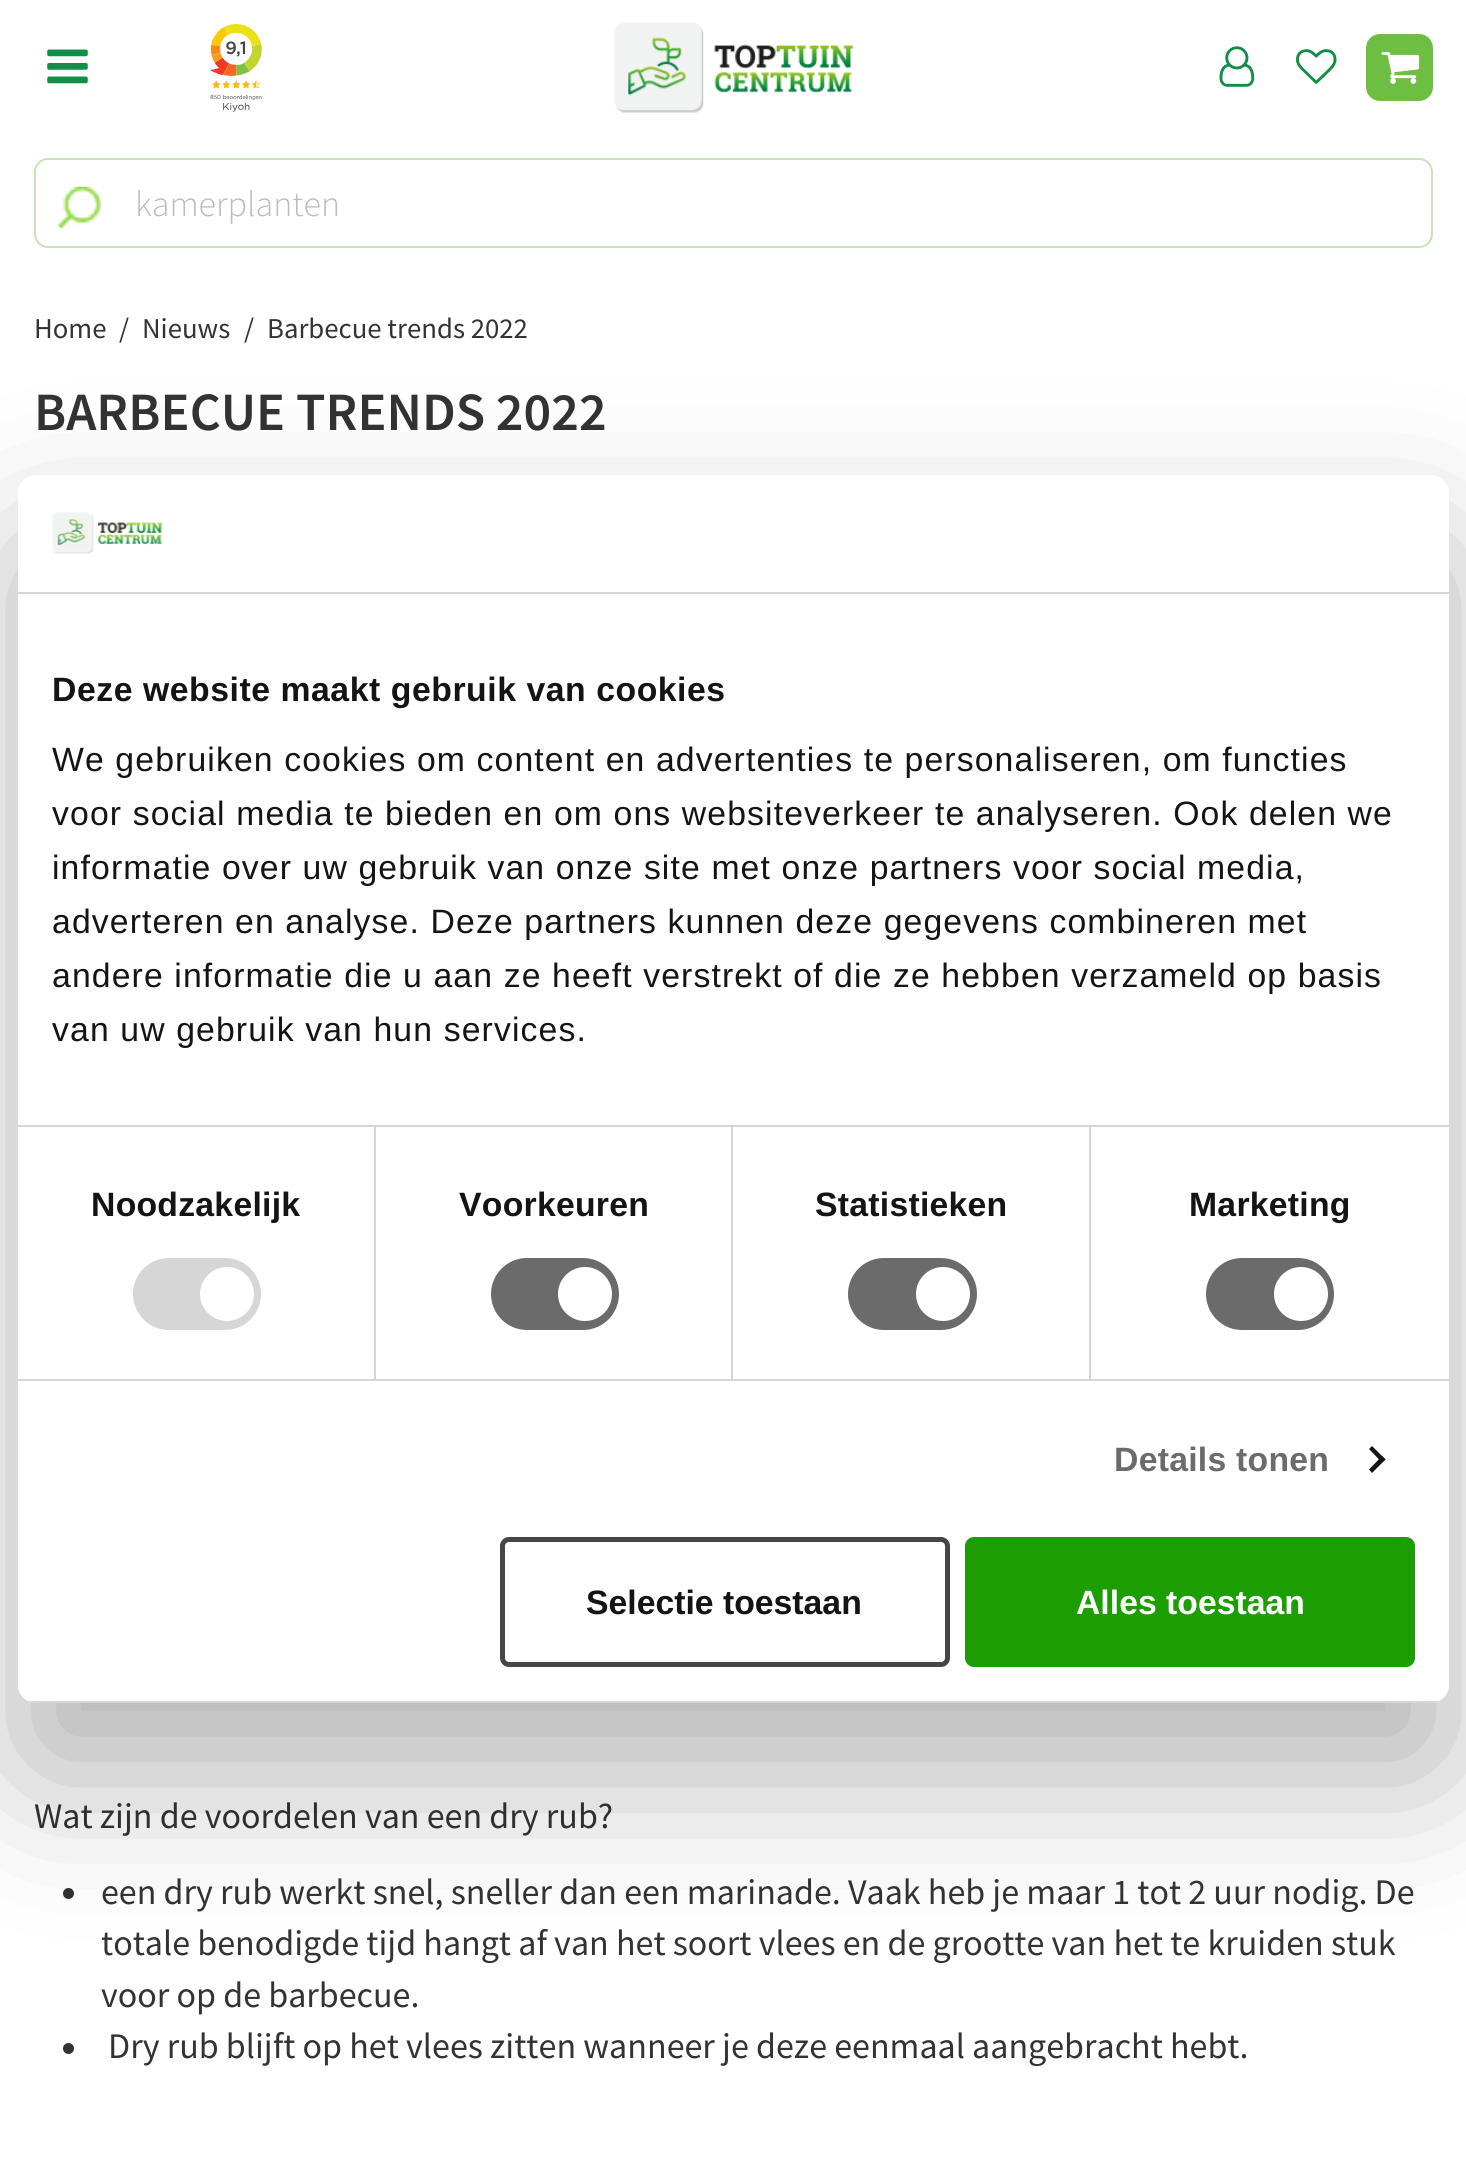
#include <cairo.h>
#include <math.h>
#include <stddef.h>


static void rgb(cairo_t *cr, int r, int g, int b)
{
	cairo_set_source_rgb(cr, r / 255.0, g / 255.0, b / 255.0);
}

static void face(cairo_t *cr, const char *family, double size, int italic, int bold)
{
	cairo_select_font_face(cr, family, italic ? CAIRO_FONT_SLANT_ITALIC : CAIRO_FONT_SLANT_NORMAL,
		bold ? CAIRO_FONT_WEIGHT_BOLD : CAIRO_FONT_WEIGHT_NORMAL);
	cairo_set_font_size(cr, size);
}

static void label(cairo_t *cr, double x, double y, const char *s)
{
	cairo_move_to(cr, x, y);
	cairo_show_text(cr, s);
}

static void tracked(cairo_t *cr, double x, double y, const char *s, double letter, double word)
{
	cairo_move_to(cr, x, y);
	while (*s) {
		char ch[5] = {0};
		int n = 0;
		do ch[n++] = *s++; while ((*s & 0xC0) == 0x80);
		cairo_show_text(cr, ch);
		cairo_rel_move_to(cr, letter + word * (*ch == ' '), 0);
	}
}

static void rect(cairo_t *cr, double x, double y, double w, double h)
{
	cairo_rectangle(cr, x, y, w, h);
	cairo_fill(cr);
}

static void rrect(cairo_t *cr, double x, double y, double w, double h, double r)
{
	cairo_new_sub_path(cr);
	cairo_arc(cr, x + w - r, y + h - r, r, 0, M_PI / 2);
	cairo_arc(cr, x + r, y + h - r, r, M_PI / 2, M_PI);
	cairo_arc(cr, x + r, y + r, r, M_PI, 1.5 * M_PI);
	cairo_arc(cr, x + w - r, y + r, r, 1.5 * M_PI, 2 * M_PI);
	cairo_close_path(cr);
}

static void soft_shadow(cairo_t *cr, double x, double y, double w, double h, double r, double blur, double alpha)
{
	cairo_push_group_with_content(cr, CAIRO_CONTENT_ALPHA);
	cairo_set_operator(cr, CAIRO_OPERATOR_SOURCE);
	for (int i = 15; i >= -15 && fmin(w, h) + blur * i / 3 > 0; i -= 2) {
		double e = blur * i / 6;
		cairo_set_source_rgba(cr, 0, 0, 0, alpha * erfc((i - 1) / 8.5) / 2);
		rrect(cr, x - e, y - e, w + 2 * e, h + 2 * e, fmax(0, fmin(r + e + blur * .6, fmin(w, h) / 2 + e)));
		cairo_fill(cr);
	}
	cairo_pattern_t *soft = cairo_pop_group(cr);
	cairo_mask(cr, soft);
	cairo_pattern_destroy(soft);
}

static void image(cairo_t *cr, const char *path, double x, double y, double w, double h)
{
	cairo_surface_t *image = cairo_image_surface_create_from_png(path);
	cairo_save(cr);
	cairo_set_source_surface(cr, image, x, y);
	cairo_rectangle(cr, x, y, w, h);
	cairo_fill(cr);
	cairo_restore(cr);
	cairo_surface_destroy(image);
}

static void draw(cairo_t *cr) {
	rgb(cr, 255, 255, 255);
	cairo_paint(cr);
	image(cr, "image0.png", 47, 49, 41, 35);
	image(cr, "image1.png", 210, 24, 52, 88);
	image(cr, "image2.png", 614, 22, 239, 91);
	image(cr, "image3.png", 1219, 46, 36, 41);
	image(cr, "image4.png", 1296, 49, 41, 35);
	rgb(cr, 110, 190, 68);
	rrect(cr, 1366, 34, 67, 67, 14);
	cairo_fill(cr);
	image(cr, "image5.png", 1381, 52, 39, 32);
	rrect(cr, 35, 159, 1397, 88, 13);
	rgb(cr, 197, 229, 180);
	cairo_stroke(cr);
	image(cr, "image6.png", 57, 186, 45, 44);
	face(cr, "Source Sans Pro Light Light", 36, 0, 0);
	rgb(cr, 187, 187, 187);
	label(cr, 135, 216, "kamerplanten");
	face(cr, "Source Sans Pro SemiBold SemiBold", 54, 0, 0);
	rgb(cr, 51, 51, 51);
	label(cr, 34, 430, "BARBECUE TRENDS 2022");
	face(cr, "Source Sans Pro", 36, 0, 0);
	label(cr, 34, 1828, "Wat zijn de voordelen van een dry rub?");
	cairo_new_path(cr);
	cairo_arc(cr, 68.5, 1893.5, 5.5, 0, 2 * M_PI);
	cairo_fill(cr);
	label(cr, 101, 1904, "een dry rub werkt snel, sneller dan een marinade. Vaak heb je maar 1 tot 2 uur nodig. De");
	label(cr, 101, 1955, "totale benodigde tijd hangt af van het soort vlees en de grootte van het te kruiden stuk");
	label(cr, 101, 2007, "voor op de barbecue.");
	cairo_new_path(cr);
	cairo_arc(cr, 68.5, 2048.5, 5.5, 0, 2 * M_PI);
	cairo_fill(cr);
	label(cr, 108, 2058, "Dry rub blijft op het vlees zitten wanneer je deze eenmaal aangebracht hebt.");
	face(cr, "Source Sans Pro", 28.75, 0, 0);
	label(cr, 34, 338, "Home");
	label(cr, 119, 338, "/");
	label(cr, 142, 338, "Nieuws");
	label(cr, 244, 338, "/");
	label(cr, 267, 338, "Barbecue trends 2022");
	rgb(cr, 0, 0, 0);
	soft_shadow(cr, 18, 547, 1431, 1228, 18, 76.5, 0.3);
	rgb(cr, 255, 255, 255);
	rrect(cr, 18, 475, 1431, 1228, 18);
	cairo_fill(cr);
	rgb(cr, 214, 214, 214);
	rect(cr, 18, 592, 1431, 2);
	image(cr, "image7.png", 52, 512, 110, 42);
	rect(cr, 18, 1125, 1431, 2);
	face(cr, "Liberation Sans", 33.75, 0, 1);
	rgb(cr, 20, 20, 20);
	tracked(cr, 52, 701, "Deze website maakt gebruik van cookies", 0.55, 0);
	face(cr, "Liberation Sans", 33.75, 0, 0);
	tracked(cr, 52, 771, "We gebruiken cookies om content en advertenties te personaliseren, om functies", 1.12, 0);
	tracked(cr, 52, 825, "voor social media te bieden en om ons websiteverkeer te analyseren. Ook delen we", 1.12, 0);
	tracked(cr, 52, 879, "informatie over uw gebruik van onze site met onze partners voor social media,", 1.12, 0);
	tracked(cr, 52, 933, "adverteren en analyse. Deze partners kunnen deze gegevens combineren met", 1.12, 0);
	tracked(cr, 52, 987, "andere informatie die u aan ze heeft verstrekt of die ze hebben verzameld op basis", 1.12, 0);
	tracked(cr, 52, 1041, "van uw gebruik van hun services.", 1.12, 0);
	rgb(cr, 214, 214, 214);
	rect(cr, 18, 1379, 1431, 2);
	rect(cr, 374, 1127, 2, 252);
	face(cr, "Liberation Sans", 33.75, 0, 1);
	rgb(cr, 20, 20, 20);
	tracked(cr, 91, 1216, "Noodzakelijk", 0.25, 0);
	rgb(cr, 214, 214, 214);
	rrect(cr, 133, 1258, 128, 72, 36);
	cairo_fill(cr);
	rgb(cr, 255, 255, 255);
	cairo_arc(cr, 227, 1294, 27, 0, 2 * M_PI);
	cairo_fill(cr);
	rgb(cr, 214, 214, 214);
	rect(cr, 731, 1127, 2, 252);
	rgb(cr, 20, 20, 20);
	tracked(cr, 459, 1216, "Voorkeuren", 0.25, 0);
	rgb(cr, 107, 107, 107);
	rrect(cr, 491, 1258, 128, 72, 36);
	cairo_fill(cr);
	rgb(cr, 255, 255, 255);
	cairo_arc(cr, 585, 1294, 27, 0, 2 * M_PI);
	cairo_fill(cr);
	rgb(cr, 214, 214, 214);
	rect(cr, 1089, 1127, 2, 252);
	rgb(cr, 20, 20, 20);
	tracked(cr, 815, 1216, "Statistieken", 0.25, 0);
	rgb(cr, 107, 107, 107);
	rrect(cr, 848, 1258, 129, 72, 36);
	cairo_fill(cr);
	rgb(cr, 255, 255, 255);
	cairo_arc(cr, 943, 1294, 27, 0, 2 * M_PI);
	cairo_fill(cr);
	rgb(cr, 20, 20, 20);
	tracked(cr, 1189, 1216, "Marketing", 0.25, 0);
	rgb(cr, 107, 107, 107);
	rrect(cr, 1206, 1258, 128, 72, 36);
	cairo_fill(cr);
	rgb(cr, 255, 255, 255);
	cairo_arc(cr, 1301, 1294, 27, 0, 2 * M_PI);
	cairo_fill(cr);
	rgb(cr, 107, 107, 107);
	tracked(cr, 1114, 1471, "Details tonen", 0.25, 0);
	rgb(cr, 20, 20, 20);
	cairo_new_path(cr);
	cairo_move_to(cr, 1372, 1446);
	cairo_line_to(cr, 1385.5, 1459.5);
	cairo_line_to(cr, 1382, 1462.5);
	cairo_line_to(cr, 1369, 1449);
	cairo_close_path(cr);
	cairo_fill(cr);
	cairo_new_path(cr);
	cairo_move_to(cr, 1382, 1456);
	cairo_line_to(cr, 1385.5, 1459.5);
	cairo_line_to(cr, 1372, 1473);
	cairo_line_to(cr, 1369, 1469.5);
	cairo_close_path(cr);
	cairo_fill(cr);
	cairo_save(cr);
	rrect(cr, 18, 475, 1431, 1228, 18);
	cairo_clip(cr);
	rgb(cr, 214, 214, 214);
	rect(cr, 28, 1701, 1411, 2);
	cairo_restore(cr);
	rrect(cr, 502.5, 1539.5, 445, 125, 6.5);
	rgb(cr, 70, 70, 70);
	cairo_set_line_width(cr, 5);
	cairo_stroke(cr);
	rgb(cr, 20, 20, 20);
	label(cr, 586, 1614, "Selectie toestaan");
	rgb(cr, 28, 157, 2);
	rrect(cr, 967.5, 1539.5, 445, 125, 6.5);
	cairo_fill_preserve(cr);
	cairo_stroke(cr);
	rgb(cr, 255, 255, 255);
	label(cr, 1076, 1614, "Alles toestaan");
}

int main(void) {
	cairo_surface_t *surface = cairo_image_surface_create(CAIRO_FORMAT_RGB24, 1466, 2176);
	cairo_t *cr = cairo_create(surface);
	cairo_font_options_t *options = cairo_font_options_create();
	cairo_font_options_set_hint_metrics(options, CAIRO_HINT_METRICS_OFF);
	cairo_font_options_set_hint_style(options, CAIRO_HINT_STYLE_NONE);
	cairo_set_font_options(cr, options);
	cairo_set_miter_limit(cr, 4);
	draw(cr);
	cairo_surface_write_to_png(surface, "render.png");
	cairo_font_options_destroy(options);
	cairo_destroy(cr);
	cairo_surface_destroy(surface);
	return 0;
}
